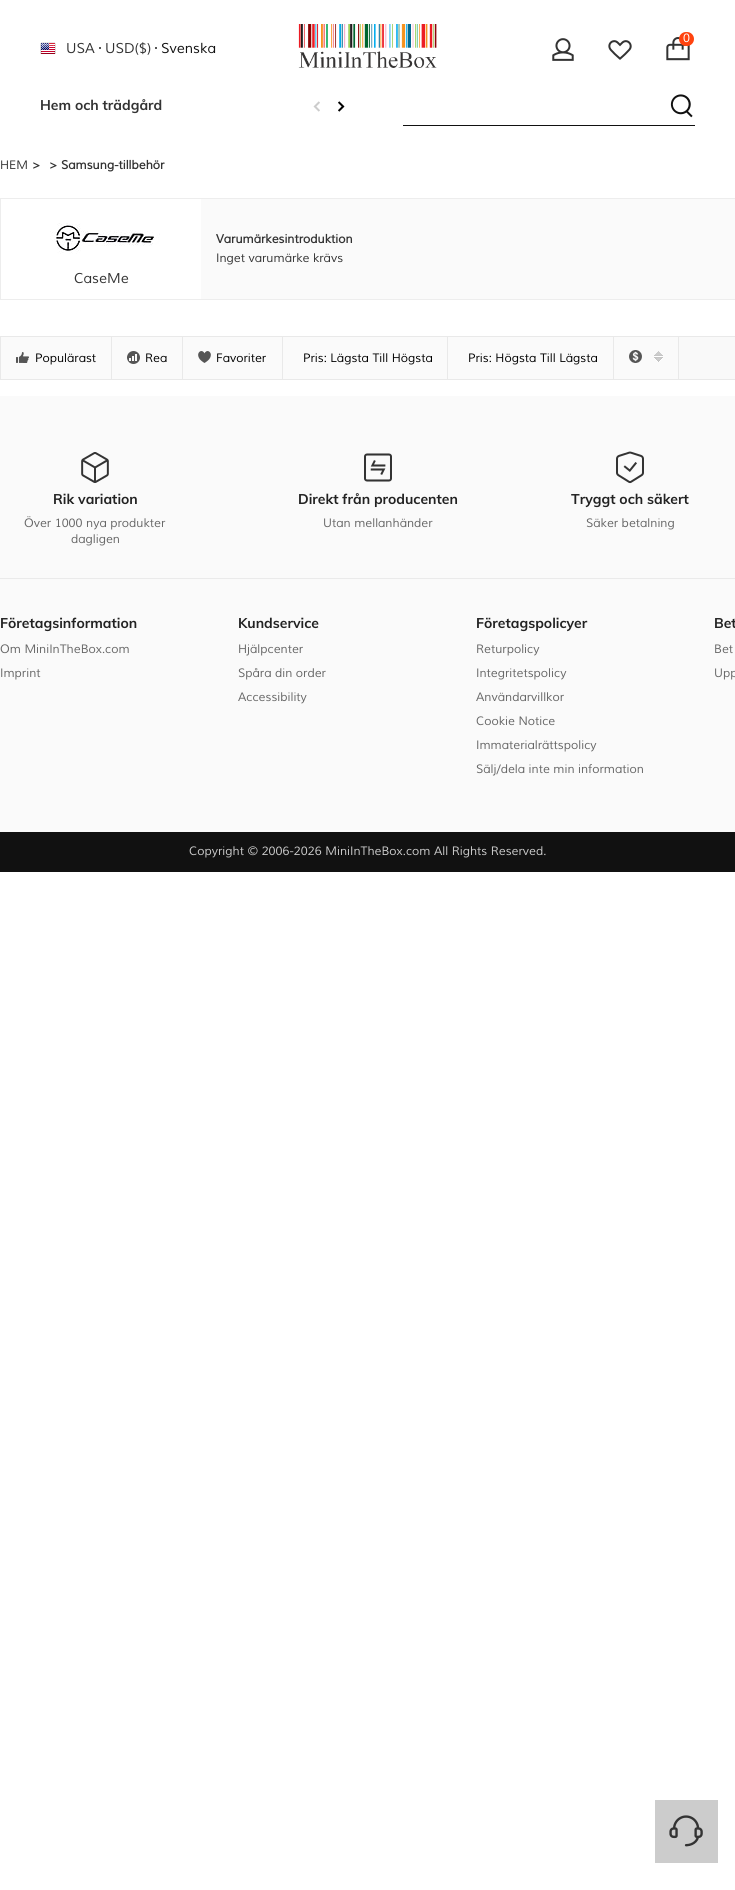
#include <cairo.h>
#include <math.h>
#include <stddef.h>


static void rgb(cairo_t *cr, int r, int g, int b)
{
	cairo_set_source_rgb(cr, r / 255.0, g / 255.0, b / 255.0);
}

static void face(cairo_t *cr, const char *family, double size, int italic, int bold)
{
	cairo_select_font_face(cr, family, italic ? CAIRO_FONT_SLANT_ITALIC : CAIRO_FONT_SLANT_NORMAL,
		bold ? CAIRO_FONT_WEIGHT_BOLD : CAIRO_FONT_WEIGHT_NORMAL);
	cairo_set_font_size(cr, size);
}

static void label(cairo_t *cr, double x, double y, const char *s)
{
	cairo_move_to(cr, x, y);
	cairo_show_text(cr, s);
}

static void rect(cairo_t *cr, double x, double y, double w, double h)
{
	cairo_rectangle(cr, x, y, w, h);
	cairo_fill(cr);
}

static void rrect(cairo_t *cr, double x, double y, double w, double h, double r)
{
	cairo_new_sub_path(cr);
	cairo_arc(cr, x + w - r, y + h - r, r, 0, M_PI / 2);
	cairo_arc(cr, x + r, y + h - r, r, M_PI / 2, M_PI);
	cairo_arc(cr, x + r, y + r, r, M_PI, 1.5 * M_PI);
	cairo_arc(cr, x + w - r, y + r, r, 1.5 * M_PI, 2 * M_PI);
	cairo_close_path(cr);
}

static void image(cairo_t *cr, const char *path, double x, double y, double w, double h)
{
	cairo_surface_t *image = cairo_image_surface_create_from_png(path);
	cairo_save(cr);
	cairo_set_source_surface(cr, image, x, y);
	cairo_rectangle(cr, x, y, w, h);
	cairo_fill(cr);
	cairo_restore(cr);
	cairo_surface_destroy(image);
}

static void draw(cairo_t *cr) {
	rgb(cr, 255, 255, 255);
	cairo_paint(cr);
	image(cr, "image0.png", 298, 24, 139, 44);
	image(cr, "image1.png", 552, 38, 22, 23);
	image(cr, "image2.png", 608, 40, 24, 20);
	image(cr, "image3.png", 666, 37, 24, 24);
	rgb(cr, 255, 67, 15);
	rrect(cr, 679, 32, 15, 14, 7);
	cairo_fill(cr);
	face(cr, "Muli", 12, 1, 0);
	rgb(cr, 255, 255, 255);
	label(cr, 683, 42, "0");
	image(cr, "image4.png", 40, 42, 16, 12);
	face(cr, "Muli", 14, 1, 0);
	rgb(cr, 51, 51, 51);
	label(cr, 66, 53, "USA");
	rgb(cr, 85, 85, 85);
	rect(cr, 99, 47, 2, 2);
	rgb(cr, 51, 51, 51);
	label(cr, 105, 53, "USD($)");
	rgb(cr, 85, 85, 85);
	rect(cr, 155, 47, 2, 2);
	rgb(cr, 17, 17, 17);
	label(cr, 161, 53, "Svenska");
	image(cr, "image5.png", 670, 94, 23, 24);
	rect(cr, 403, 125, 292, 1);
	face(cr, "Muli", 14, 0, 1);
	rgb(cr, 51, 51, 51);
	label(cr, 40, 110, "Hem och trädgård");
	image(cr, "image6.png", 313, 101, 7, 11);
	image(cr, "image7.png", 338, 101, 7, 11);
	face(cr, "Muli", 12, 1, 0);
	label(cr, 0, 169, "HEM");
	face(cr, "Muli", 12, 1, 1);
	label(cr, 32, 169, ">");
	label(cr, 49, 169, ">");
	label(cr, 61, 169, "Samsung-tillbehör");
	rgb(cr, 237, 237, 237);
	rect(cr, 0, 198, 735, 1);
	rect(cr, 0, 299, 735, 1);
	rect(cr, 0, 198, 1, 102);
	rgb(cr, 250, 250, 250);
	rect(cr, 201, 199, 534, 100);
	rgb(cr, 51, 51, 51);
	label(cr, 216, 243, "Varumärkesintroduktion");
	face(cr, "Muli", 12, 1, 0);
	label(cr, 216, 262, "Inget varumärke krävs");
	image(cr, "image8.png", 50, 223, 110, 31);
	face(cr, "Muli", 14, 1, 0);
	label(cr, 74, 283, "CaseMe");
	rgb(cr, 249, 249, 249);
	rect(cr, 679, 337, 56, 42);
	cairo_rectangle(cr, 0.5, 336.5, 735, 43);
	rgb(cr, 233, 233, 233);
	cairo_set_line_width(cr, 1);
	cairo_stroke(cr);
	rgb(cr, 250, 250, 250);
	rect(cr, 1, 337, 677, 42);
	rgb(cr, 233, 233, 233);
	rect(cr, 111, 336, 1, 44);
	image(cr, "image9.png", 16, 352, 13, 11);
	face(cr, "Muli", 12, 1, 0);
	rgb(cr, 0, 0, 0);
	label(cr, 35, 362, "Populärast");
	rgb(cr, 233, 233, 233);
	rect(cr, 182, 336, 1, 44);
	image(cr, "image10.png", 127, 351, 13, 13);
	rgb(cr, 0, 0, 0);
	label(cr, 145, 362, "Rea");
	rgb(cr, 233, 233, 233);
	rect(cr, 282, 336, 1, 44);
	image(cr, "image11.png", 198, 351, 13, 12);
	rgb(cr, 0, 0, 0);
	label(cr, 216, 362, "Favoriter");
	rgb(cr, 233, 233, 233);
	rect(cr, 447, 336, 1, 44);
	rgb(cr, 0, 0, 0);
	label(cr, 303, 362, "Pris: Lägsta Till Högsta");
	rgb(cr, 233, 233, 233);
	rect(cr, 613, 336, 1, 44);
	rgb(cr, 0, 0, 0);
	label(cr, 468, 362, "Pris: Högsta Till Lägsta");
	rgb(cr, 233, 233, 233);
	rect(cr, 678, 336, 1, 44);
	image(cr, "image12.png", 629, 350, 13, 13);
	image(cr, "image13.png", 654, 351, 9, 11);
	rgb(cr, 250, 250, 250);
	rect(cr, 0, 396, 735, 436);
	rgb(cr, 234, 234, 234);
	rect(cr, 0, 578, 735, 1);
	image(cr, "image14.png", 81, 452, 28, 31);
	face(cr, "Muli", 14, 0, 1);
	rgb(cr, 34, 34, 34);
	label(cr, 53, 504, "Rik variation");
	face(cr, "Muli", 12, 1, 0);
	rgb(cr, 102, 102, 102);
	label(cr, 24, 527, "Över 1000 nya produkter");
	label(cr, 71, 543, "dagligen");
	image(cr, "image15.png", 364, 453, 28, 29);
	face(cr, "Muli", 14, 0, 1);
	rgb(cr, 34, 34, 34);
	label(cr, 298, 504, "Direkt från producenten");
	face(cr, "Muli", 12, 1, 0);
	rgb(cr, 102, 102, 102);
	label(cr, 323, 527, "Utan mellanhänder");
	image(cr, "image16.png", 616, 451, 28, 33);
	face(cr, "Muli", 14, 0, 1);
	rgb(cr, 34, 34, 34);
	label(cr, 571, 504, "Tryggt och säkert");
	face(cr, "Muli", 12, 1, 0);
	rgb(cr, 102, 102, 102);
	label(cr, 586, 527, "Säker betalning");
	face(cr, "Muli", 14, 0, 1);
	rgb(cr, 34, 34, 34);
	label(cr, 0, 628, "Företagsinformation");
	face(cr, "Muli", 12, 1, 0);
	rgb(cr, 102, 102, 102);
	label(cr, 0, 653, "Om MiniInTheBox.com");
	label(cr, 0, 677, "Imprint");
	face(cr, "Muli", 14, 0, 1);
	rgb(cr, 34, 34, 34);
	label(cr, 238, 628, "Kundservice");
	face(cr, "Muli", 12, 1, 0);
	rgb(cr, 102, 102, 102);
	label(cr, 238, 653, "Hjälpcenter");
	label(cr, 238, 677, "Spåra din order");
	label(cr, 238, 701, "Accessibility");
	face(cr, "Muli", 14, 0, 1);
	rgb(cr, 34, 34, 34);
	label(cr, 476, 628, "Företagspolicyer");
	face(cr, "Muli", 12, 1, 0);
	rgb(cr, 102, 102, 102);
	label(cr, 476, 653, "Returpolicy");
	label(cr, 476, 677, "Integritetspolicy");
	label(cr, 476, 701, "Användarvillkor");
	label(cr, 476, 725, "Cookie Notice");
	label(cr, 476, 749, "Immaterialrättspolicy");
	label(cr, 476, 773, "Sälj/dela inte min information");
	face(cr, "Muli", 14, 0, 1);
	rgb(cr, 34, 34, 34);
	label(cr, 714, 628, "Bet");
	face(cr, "Muli", 12, 1, 0);
	rgb(cr, 102, 102, 102);
	label(cr, 714, 653, "Bet");
	label(cr, 714, 677, "Upp");
	rgb(cr, 17, 17, 17);
	rect(cr, 0, 832, 735, 40);
	rgb(cr, 204, 204, 204);
	label(cr, 189, 855, "Copyright © 2006-2026 MiniInTheBox.com All Rights Reserved.");
	rect(cr, 655, 1800, 63, 63);
	image(cr, "image17.png", 669, 1815, 34, 32);
}

int main(void) {
	cairo_surface_t *surface = cairo_image_surface_create(CAIRO_FORMAT_RGB24, 735, 1890);
	cairo_t *cr = cairo_create(surface);
	cairo_font_options_t *options = cairo_font_options_create();
	cairo_font_options_set_hint_metrics(options, CAIRO_HINT_METRICS_OFF);
	cairo_font_options_set_hint_style(options, CAIRO_HINT_STYLE_NONE);
	cairo_set_font_options(cr, options);
	cairo_set_miter_limit(cr, 4);
	draw(cr);
	cairo_surface_write_to_png(surface, "render.png");
	cairo_font_options_destroy(options);
	cairo_destroy(cr);
	cairo_surface_destroy(surface);
	return 0;
}
